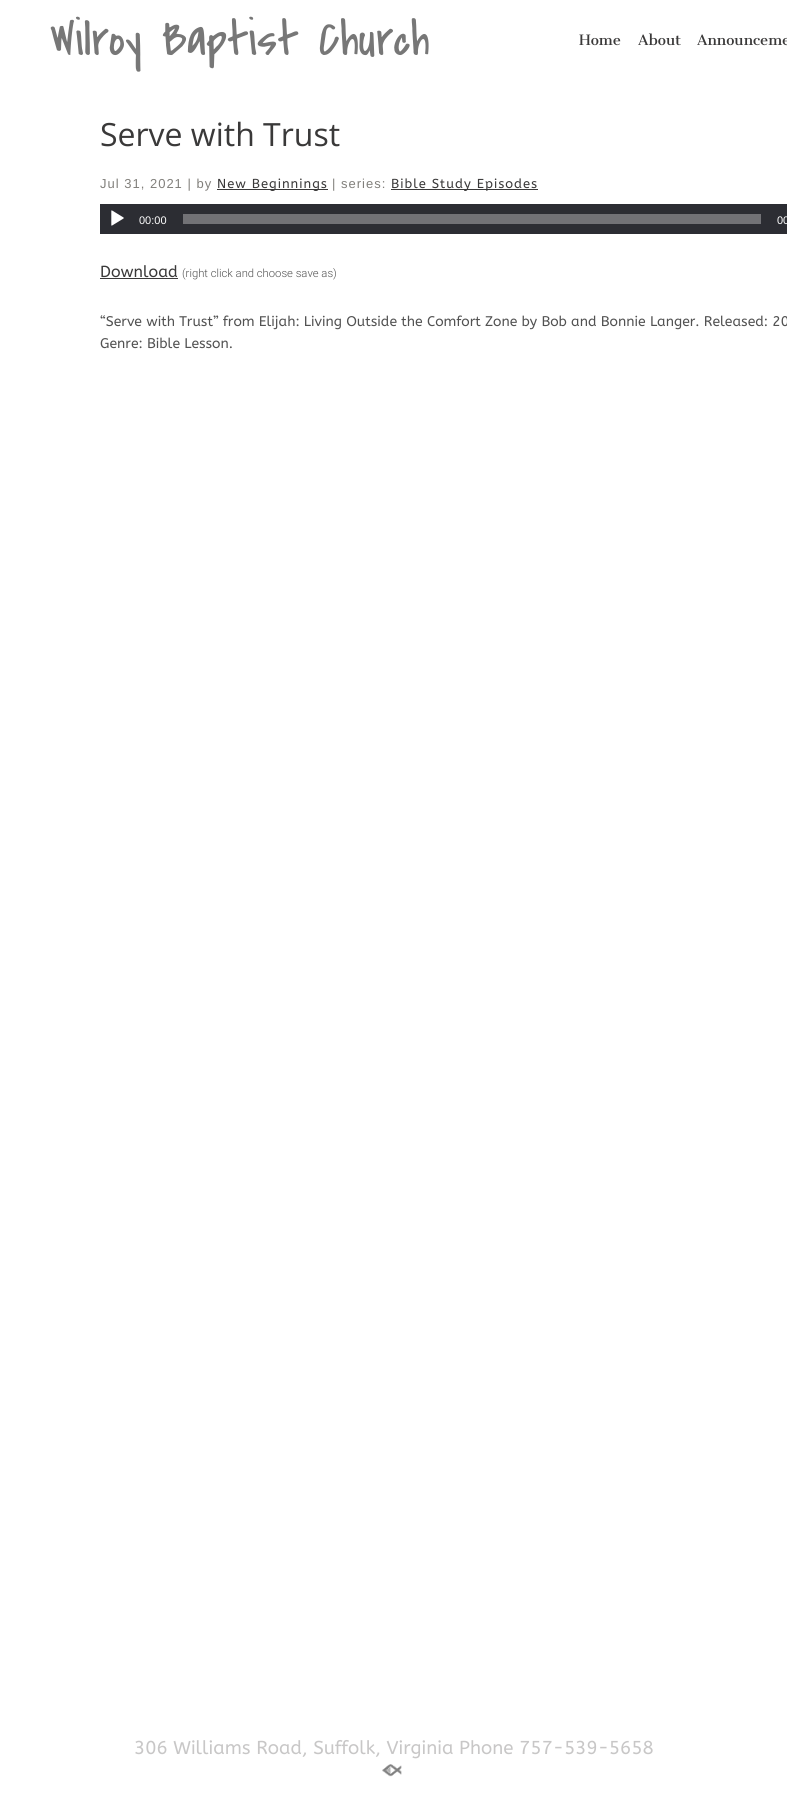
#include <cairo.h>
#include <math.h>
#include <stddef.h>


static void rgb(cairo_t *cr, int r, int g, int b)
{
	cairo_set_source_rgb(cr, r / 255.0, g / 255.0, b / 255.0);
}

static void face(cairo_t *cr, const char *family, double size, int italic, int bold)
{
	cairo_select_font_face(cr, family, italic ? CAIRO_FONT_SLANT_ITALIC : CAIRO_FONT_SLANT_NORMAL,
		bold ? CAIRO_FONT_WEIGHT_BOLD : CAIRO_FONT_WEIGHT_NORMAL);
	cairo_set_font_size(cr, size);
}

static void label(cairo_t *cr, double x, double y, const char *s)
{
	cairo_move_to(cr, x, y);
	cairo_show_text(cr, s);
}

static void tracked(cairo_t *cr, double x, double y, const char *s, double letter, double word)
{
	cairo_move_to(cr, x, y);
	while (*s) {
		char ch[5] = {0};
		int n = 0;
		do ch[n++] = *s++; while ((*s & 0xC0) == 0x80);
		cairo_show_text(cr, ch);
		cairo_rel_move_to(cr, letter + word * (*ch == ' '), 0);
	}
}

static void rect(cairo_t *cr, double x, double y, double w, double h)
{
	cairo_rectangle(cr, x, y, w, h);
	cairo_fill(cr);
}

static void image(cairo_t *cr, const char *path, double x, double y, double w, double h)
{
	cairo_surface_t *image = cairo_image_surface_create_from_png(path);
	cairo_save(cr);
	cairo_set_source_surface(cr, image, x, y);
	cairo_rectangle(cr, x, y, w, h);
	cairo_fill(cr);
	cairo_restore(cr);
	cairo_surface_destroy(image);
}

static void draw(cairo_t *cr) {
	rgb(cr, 255, 255, 255);
	cairo_paint(cr);
	face(cr, "Covered By Your Grace", 50, 0, 0);
	rgb(cr, 119, 119, 119);
	label(cr, 50, 55, "Wilroy Baptist Church");
	face(cr, "Cantata One", 14, 0, 0);
	rgb(cr, 58, 57, 57);
	label(cr, 579, 45, "Home");
	label(cr, 638, 45, "About");
	label(cr, 697, 45, "Announceme");
	face(cr, "Open Sans", 32, 0, 0);
	label(cr, 100, 146, "Serve with Trust");
	face(cr, "Liberation Sans", 13, 0, 0);
	rgb(cr, 129, 127, 123);
	tracked(cr, 100, 188, "Jul 31, 2021 | by", 1, 0);
	rgb(cr, 58, 57, 57);
	rect(cr, 217, 189, 111, 1);
	face(cr, "ABeeZee", 13, 0, 0);
	tracked(cr, 217, 188, "New Beginnings", 1, 0);
	face(cr, "Liberation Sans", 13, 0, 0);
	rgb(cr, 129, 127, 123);
	tracked(cr, 332, 188, "| series:", 1, 0);
	rgb(cr, 58, 57, 57);
	rect(cr, 391, 189, 147, 1);
	face(cr, "ABeeZee", 13, 0, 0);
	tracked(cr, 391, 188, "Bible Study Episodes", 1, 0);
	rgb(cr, 44, 45, 51);
	rect(cr, 100, 204, 687, 30);
	image(cr, "image0.png", 111, 210, 13, 16);
	face(cr, "Liberation Sans", 11, 0, 0);
	rgb(cr, 255, 255, 255);
	label(cr, 139, 224, "00:00");
	rgb(cr, 114, 114, 118);
	rect(cr, 183, 214, 578, 10);
	rgb(cr, 255, 255, 255);
	label(cr, 777, 224, "00");
	face(cr, "ABeeZee", 16, 0, 0);
	rgb(cr, 58, 57, 57);
	label(cr, 100, 277, "Download");
	face(cr, "Roboto Light", 11.25, 0, 0);
	rgb(cr, 82, 82, 82);
	label(cr, 182, 277, "(right click and choose save as)");
	rgb(cr, 58, 57, 57);
	rect(cr, 100, 278, 78, 1);
	face(cr, "ABeeZee", 14, 0, 0);
	rgb(cr, 82, 82, 82);
	label(cr, 100, 326, "“Serve with Trust” from Elijah: Living Outside the Comfort Zone by Bob and Bonnie Langer. Released: 20");
	label(cr, 100, 348, "Genre: Bible Lesson.");
	face(cr, "ABeeZee", 18.7, 0, 0);
	rgb(cr, 200, 199, 199);
	label(cr, 134, 1754, "306 Williams Road, Suffolk, Virginia Phone 757-539-5658");
	image(cr, "image1.png", 382, 1764, 20, 13);
}

int main(void) {
	cairo_surface_t *surface = cairo_image_surface_create(CAIRO_FORMAT_RGB24, 787, 1793);
	cairo_t *cr = cairo_create(surface);
	cairo_font_options_t *options = cairo_font_options_create();
	cairo_font_options_set_hint_metrics(options, CAIRO_HINT_METRICS_OFF);
	cairo_font_options_set_hint_style(options, CAIRO_HINT_STYLE_NONE);
	cairo_set_font_options(cr, options);
	cairo_set_miter_limit(cr, 4);
	draw(cr);
	cairo_surface_write_to_png(surface, "render.png");
	cairo_font_options_destroy(options);
	cairo_destroy(cr);
	cairo_surface_destroy(surface);
	return 0;
}
